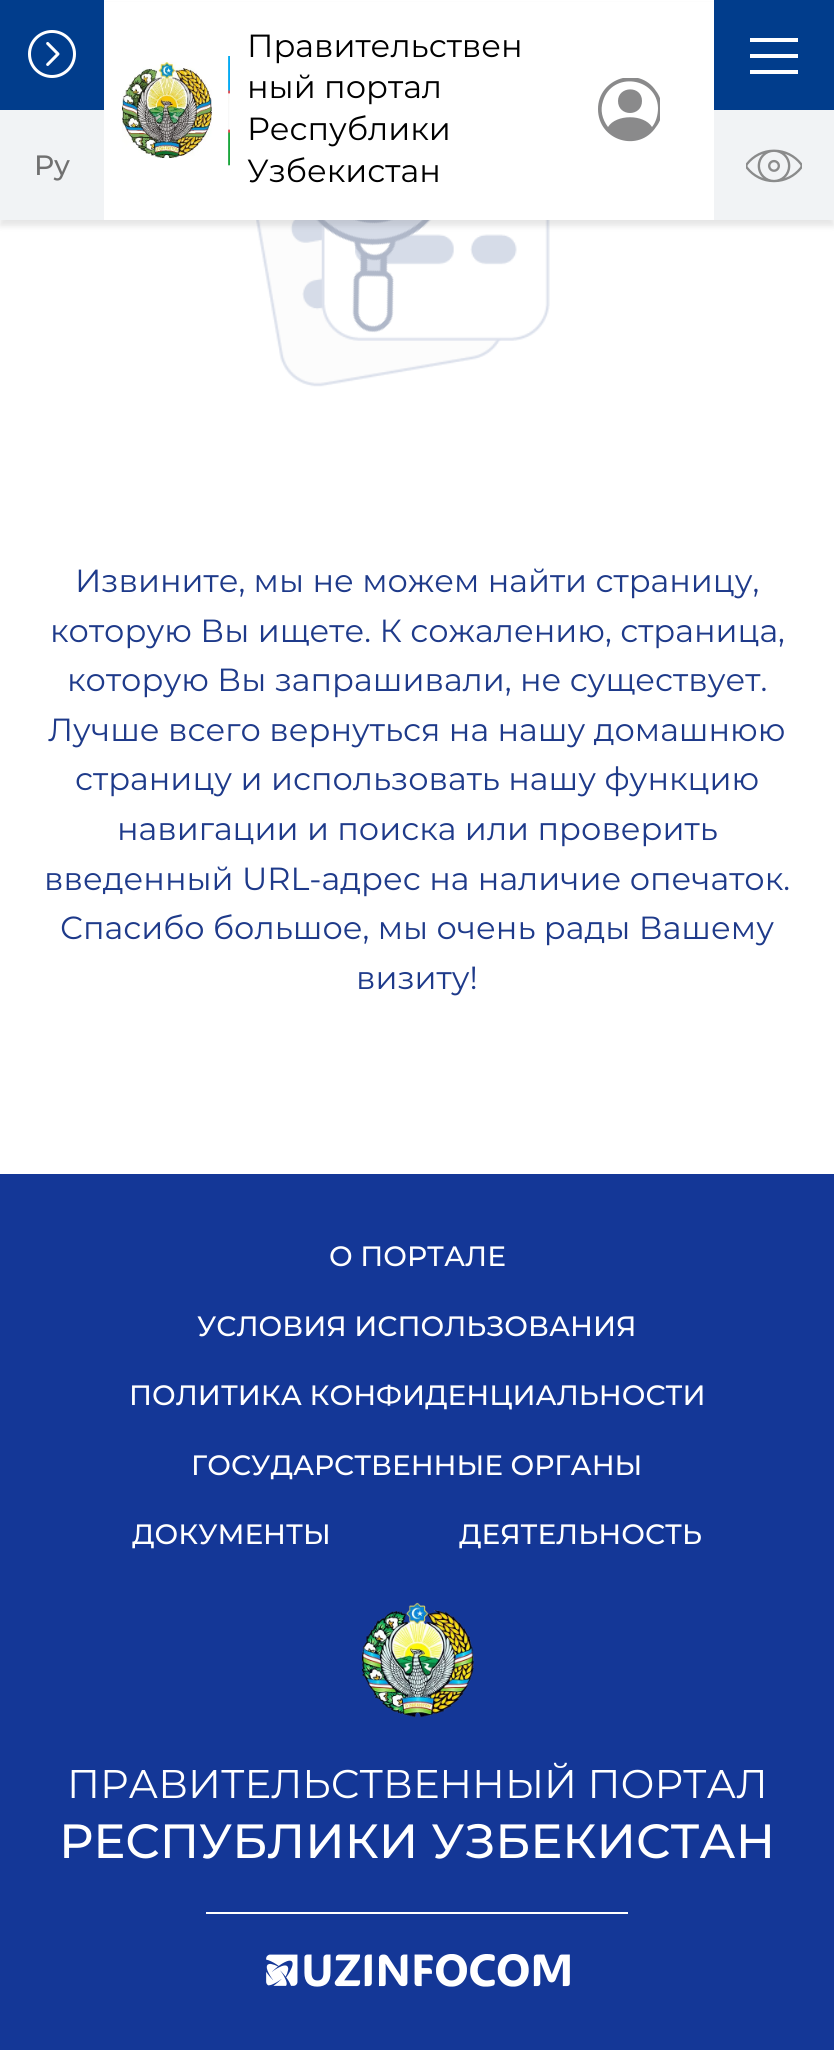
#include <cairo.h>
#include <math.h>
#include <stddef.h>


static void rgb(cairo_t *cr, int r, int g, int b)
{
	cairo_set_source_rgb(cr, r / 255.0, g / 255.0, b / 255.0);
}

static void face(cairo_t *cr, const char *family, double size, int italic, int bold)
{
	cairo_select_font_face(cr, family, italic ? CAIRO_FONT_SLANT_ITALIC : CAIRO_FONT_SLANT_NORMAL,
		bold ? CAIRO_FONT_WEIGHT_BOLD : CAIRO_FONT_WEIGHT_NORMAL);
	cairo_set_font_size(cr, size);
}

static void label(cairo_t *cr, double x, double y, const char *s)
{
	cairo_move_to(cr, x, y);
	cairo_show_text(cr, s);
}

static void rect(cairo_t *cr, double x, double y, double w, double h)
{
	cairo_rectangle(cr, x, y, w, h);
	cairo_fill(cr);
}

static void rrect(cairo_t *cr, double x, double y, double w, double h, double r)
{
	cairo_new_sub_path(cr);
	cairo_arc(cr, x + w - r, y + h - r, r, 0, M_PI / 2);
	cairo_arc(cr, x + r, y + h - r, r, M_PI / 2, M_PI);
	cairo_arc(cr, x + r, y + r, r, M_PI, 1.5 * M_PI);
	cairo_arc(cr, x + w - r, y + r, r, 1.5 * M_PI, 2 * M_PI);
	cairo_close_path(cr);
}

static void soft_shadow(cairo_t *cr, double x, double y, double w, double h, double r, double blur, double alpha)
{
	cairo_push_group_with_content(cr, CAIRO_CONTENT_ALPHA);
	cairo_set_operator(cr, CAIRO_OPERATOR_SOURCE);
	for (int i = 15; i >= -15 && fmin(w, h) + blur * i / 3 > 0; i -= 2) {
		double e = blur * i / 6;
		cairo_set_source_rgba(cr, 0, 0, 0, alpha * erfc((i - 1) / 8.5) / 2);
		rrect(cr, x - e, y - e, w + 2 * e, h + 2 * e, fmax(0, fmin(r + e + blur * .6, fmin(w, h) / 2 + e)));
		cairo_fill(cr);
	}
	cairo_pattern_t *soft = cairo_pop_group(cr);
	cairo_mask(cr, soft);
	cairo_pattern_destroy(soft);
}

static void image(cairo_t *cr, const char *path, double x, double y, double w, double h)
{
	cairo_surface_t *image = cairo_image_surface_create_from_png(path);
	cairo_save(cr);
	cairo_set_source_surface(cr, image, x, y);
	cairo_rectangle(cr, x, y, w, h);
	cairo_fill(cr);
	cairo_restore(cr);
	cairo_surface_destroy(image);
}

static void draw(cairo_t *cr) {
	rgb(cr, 255, 255, 255);
	cairo_paint(cr);
	image(cr, "image4.png", 256, 220, 294, 167);
	rgb(cr, 0, 0, 0);
	soft_shadow(cr, 0, 6, 834, 220, 0, 3, 0.1);
	rgb(cr, 255, 255, 255);
	rect(cr, 104, 2, 610, 218);
	rgb(cr, 1, 61, 140);
	rect(cr, 0, 0, 104, 110);
	image(cr, "image0.png", 28, 30, 48, 48);
	rgb(cr, 241, 243, 245);
	rect(cr, 0, 110, 104, 110);
	face(cr, "Montserrat Medium", 28, 0, 0);
	rgb(cr, 112, 112, 112);
	label(cr, 34, 175, "Ру");
	image(cr, "image1.png", 122, 62, 90, 96);
	image(cr, "image2.png", 228, 56, 2, 110);
	face(cr, "Montserrat", 32, 0, 0);
	rgb(cr, 0, 0, 0);
	label(cr, 247, 57, "Правительствен");
	label(cr, 247, 98, "ный портал");
	label(cr, 247, 140, "Республики");
	label(cr, 247, 182, "Узбекистан");
	cairo_save(cr);
	cairo_rectangle(cr, 596, 78, 64, 64);
	cairo_clip(cr);
	rgb(cr, 138, 138, 139);
	cairo_new_path(cr);
	cairo_move_to(cr, 598, 109);
	cairo_curve_to(cr, 598, 78, 639, 65, 656, 91);
	cairo_curve_to(cr, 660, 96, 662, 103, 662, 109);
	cairo_curve_to(cr, 662, 116, 660, 122, 656, 127);
	cairo_curve_to(cr, 639, 153, 598, 141, 598, 109);
	cairo_move_to(cr, 652, 127);
	cairo_curve_to(cr, 656, 122, 658, 115, 658, 108);
	cairo_curve_to(cr, 657, 77, 612, 71, 603, 101);
	cairo_curve_to(cr, 600, 110, 602, 119, 608, 127);
	cairo_curve_to(cr, 616, 114, 644, 114, 652, 127);
	cairo_move_to(cr, 618, 101);
	cairo_curve_to(cr, 618, 86, 642, 85, 642, 101);
	cairo_curve_to(cr, 642, 117, 618, 117, 618, 101);
	cairo_fill(cr);
	cairo_restore(cr);
	rgb(cr, 1, 61, 140);
	rect(cr, 714, 0, 120, 110);
	rgb(cr, 255, 255, 255);
	rect(cr, 750, 54, 48, 4);
	rect(cr, 750, 38, 48, 4);
	rect(cr, 750, 70, 48, 4);
	rgb(cr, 241, 243, 245);
	rect(cr, 714, 110, 120, 110);
	image(cr, "image3.png", 746, 149, 56, 34);
	rgb(cr, 30, 58, 138);
	label(cr, 75, 592, "Извините, мы не можем найти страницу,");
	label(cr, 50, 642, "которую Вы ищете. К сожалению, страница,");
	label(cr, 67, 691, "которую Вы запрашивали, не существует.");
	label(cr, 48, 741, "Лучше всего вернуться на нашу домашнюю");
	label(cr, 75, 790, "страницу и использовать нашу функцию");
	label(cr, 117, 840, "навигации и поиска или проверить");
	label(cr, 44, 890, "введенный URL-адрес на наличие опечаток.");
	label(cr, 60, 939, "Спасибо большое, мы очень рады Вашему");
	label(cr, 356, 989, "визиту!");
	rgb(cr, 20, 55, 151);
	rect(cr, 0, 1174, 834, 876);
	face(cr, "Montserrat Medium", 28, 0, 0);
	rgb(cr, 255, 255, 255);
	label(cr, 329, 1266, "О ПОРТАЛЕ");
	label(cr, 197, 1336, "УСЛОВИЯ ИСПОЛЬЗОВАНИЯ");
	label(cr, 129, 1405, "ПОЛИТИКА КОНФИДЕНЦИАЛЬНОСТИ");
	label(cr, 191, 1475, "ГОСУДАРСТВЕННЫЕ ОРГАНЫ");
	label(cr, 132, 1544, "ДОКУМЕНТЫ");
	label(cr, 459, 1544, "ДЕЯТЕЛЬНОСТЬ");
	image(cr, "image5.png", 362, 1602, 112, 116);
	face(cr, "Montserrat", 40, 0, 0);
	label(cr, 67, 1798, "ПРАВИТЕЛЬСТВЕННЫЙ ПОРТАЛ");
	face(cr, "Montserrat Medium", 48, 0, 0);
	label(cr, 59, 1858, "РЕСПУБЛИКИ УЗБЕКИСТАН");
	rect(cr, 206, 1912, 422, 2);
	image(cr, "image6.png", 266, 1954, 304, 33);
}

int main(void) {
	cairo_surface_t *surface = cairo_image_surface_create(CAIRO_FORMAT_RGB24, 834, 2050);
	cairo_t *cr = cairo_create(surface);
	cairo_font_options_t *options = cairo_font_options_create();
	cairo_font_options_set_hint_metrics(options, CAIRO_HINT_METRICS_OFF);
	cairo_font_options_set_hint_style(options, CAIRO_HINT_STYLE_NONE);
	cairo_set_font_options(cr, options);
	cairo_set_miter_limit(cr, 4);
	draw(cr);
	cairo_surface_write_to_png(surface, "render.png");
	cairo_font_options_destroy(options);
	cairo_destroy(cr);
	cairo_surface_destroy(surface);
	return 0;
}
